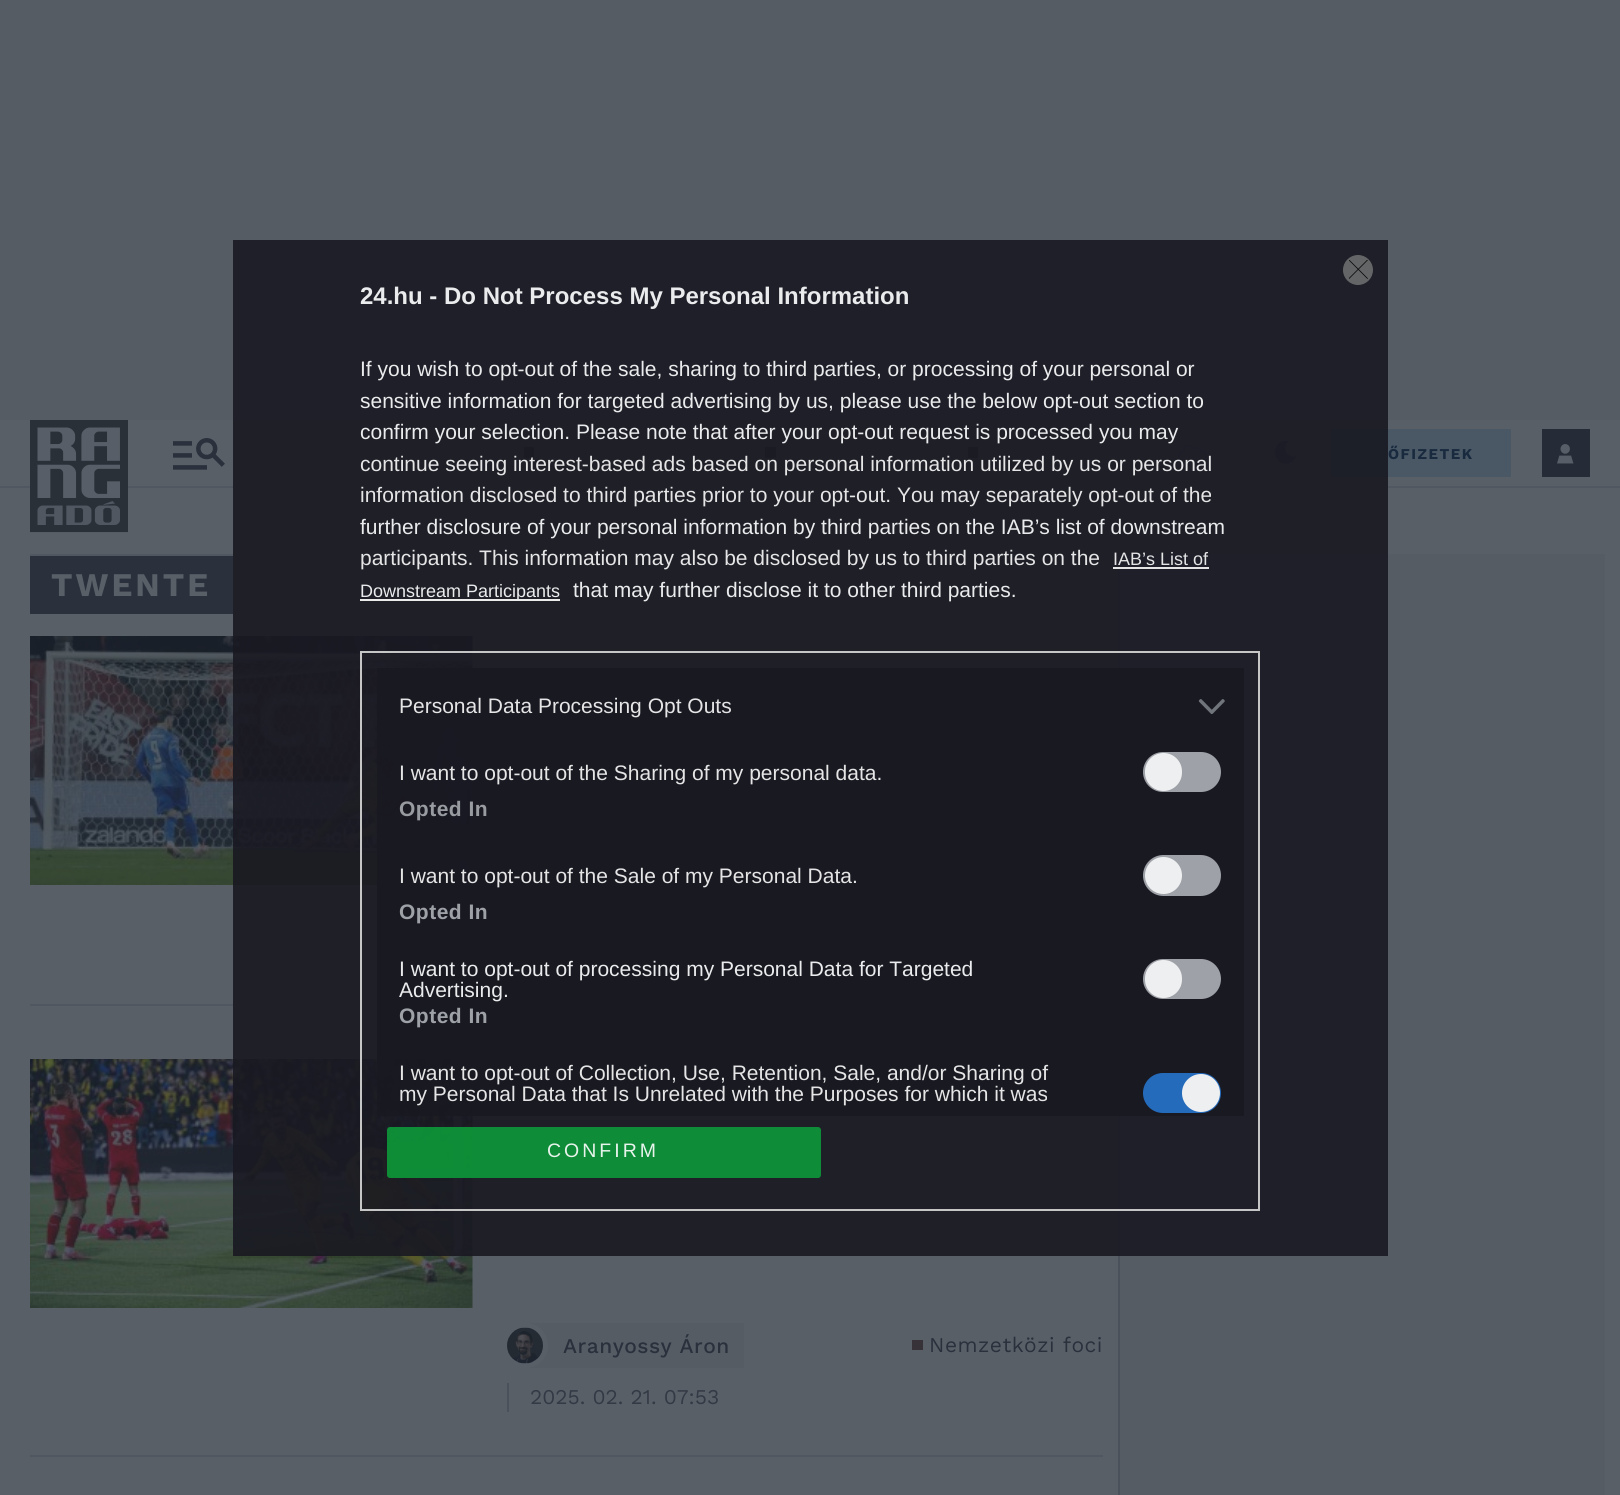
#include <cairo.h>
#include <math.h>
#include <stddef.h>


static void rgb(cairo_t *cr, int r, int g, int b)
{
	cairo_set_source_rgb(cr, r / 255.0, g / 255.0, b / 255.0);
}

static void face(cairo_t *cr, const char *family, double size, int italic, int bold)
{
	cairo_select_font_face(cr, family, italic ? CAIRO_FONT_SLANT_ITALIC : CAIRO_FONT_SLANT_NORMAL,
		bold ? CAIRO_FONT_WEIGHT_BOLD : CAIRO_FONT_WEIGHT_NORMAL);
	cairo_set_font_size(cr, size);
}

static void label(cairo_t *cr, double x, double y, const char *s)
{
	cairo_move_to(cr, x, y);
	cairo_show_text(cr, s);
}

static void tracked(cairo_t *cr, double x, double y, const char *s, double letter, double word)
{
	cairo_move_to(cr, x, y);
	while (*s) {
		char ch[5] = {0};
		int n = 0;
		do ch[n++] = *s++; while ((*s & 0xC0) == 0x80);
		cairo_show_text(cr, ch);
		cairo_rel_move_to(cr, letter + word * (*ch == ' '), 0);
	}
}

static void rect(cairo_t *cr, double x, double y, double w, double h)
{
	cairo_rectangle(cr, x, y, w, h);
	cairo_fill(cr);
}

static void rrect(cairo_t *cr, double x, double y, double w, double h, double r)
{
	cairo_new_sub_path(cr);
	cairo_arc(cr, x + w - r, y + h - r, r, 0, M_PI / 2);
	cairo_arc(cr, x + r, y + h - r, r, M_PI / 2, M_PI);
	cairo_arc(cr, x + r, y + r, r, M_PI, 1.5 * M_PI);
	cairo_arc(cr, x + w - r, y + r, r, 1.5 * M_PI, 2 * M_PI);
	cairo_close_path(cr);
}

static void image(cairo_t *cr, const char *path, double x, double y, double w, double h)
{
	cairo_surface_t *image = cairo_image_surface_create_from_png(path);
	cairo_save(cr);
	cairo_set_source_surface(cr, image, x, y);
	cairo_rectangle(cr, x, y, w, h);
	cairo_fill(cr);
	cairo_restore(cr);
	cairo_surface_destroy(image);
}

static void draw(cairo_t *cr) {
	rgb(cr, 89, 95, 103);
	cairo_paint(cr);
	rgb(cr, 86, 92, 100);
	rect(cr, 0, 0, 1620, 420);
	rgb(cr, 55, 49, 56);
	rect(cr, 524, 447, 10, 11);
	rect(cr, 765, 447, 11, 11);
	rect(cr, 968, 447, 10, 11);
	rgb(cr, 81, 87, 96);
	rect(cr, 1235, 438, 2, 30);
	rect(cr, 1109, 438, 2, 30);
	image(cr, "image3.png", 1178, 445, 29, 18);
	image(cr, "image4.png", 1274, 440, 22, 24);
	rgb(cr, 74, 88, 101);
	rect(cr, 1331, 429, 180, 48);
	rgb(cr, 81, 87, 96);
	rect(cr, 0, 486, 1620, 2);
	rect(cr, 30, 554, 1073, 2);
	rect(cr, 30, 1004, 1073, 2);
	image(cr, "image6.png", 30, 636, 443, 249);
	rgb(cr, 86, 92, 100);
	rect(cr, 525, 872, 174, 45);
	cairo_arc(cr, 525.5, 894.5, 20, 0, 2 * M_PI);
	rgb(cr, 89, 95, 103);
	cairo_set_line_width(cr, 5);
	cairo_stroke(cr);
	image(cr, "image7.png", 507, 876, 36, 36);
	rgb(cr, 75, 81, 90);
	rect(cr, 507, 932, 2, 28);
	rgb(cr, 55, 49, 56);
	rect(cr, 912, 888, 11, 11);
	image(cr, "image8.png", 30, 1059, 443, 249);
	rgb(cr, 86, 92, 100);
	rect(cr, 1120, 554, 485, 941);
	rgb(cr, 75, 81, 90);
	rect(cr, 1118, 554, 2, 941);
	cairo_set_source_rgba(cr, 0.098, 0.098, 0.133, 0.9);
	rect(cr, 233, 240, 1155, 1016);
	rgb(cr, 100, 101, 102);
	cairo_arc(cr, 1358, 270, 15, 0, 2 * M_PI);
	cairo_fill(cr);
	cairo_save(cr);
	cairo_rectangle(cr, 1349, 260, 19, 19);
	cairo_clip(cr);
	cairo_new_path(cr);
	cairo_move_to(cr, 1349, 260);
	cairo_line_to(cr, 1367.5, 278.5);
	cairo_move_to(cr, 1367.5, 260);
	cairo_line_to(cr, 1349, 278.5);
	rgb(cr, 9, 9, 10);
	cairo_set_line_width(cr, 0.8);
	cairo_set_line_cap(cr, CAIRO_LINE_CAP_ROUND);
	cairo_set_line_join(cr, CAIRO_LINE_JOIN_ROUND);
	cairo_stroke(cr);
	cairo_restore(cr);
	face(cr, "Liberation Sans", 24, 0, 1);
	rgb(cr, 234, 235, 236);
	label(cr, 360, 304, "24.hu - Do Not Process My Personal Information");
	face(cr, "Liberation Sans", 21, 0, 0);
	label(cr, 360, 376, "If you wish to opt-out of the sale, sharing to third parties, or processing of your personal or");
	label(cr, 360, 408, "sensitive information for targeted advertising by us, please use the below opt-out section to");
	label(cr, 360, 439, "confirm your selection. Please note that after your opt-out request is processed you may");
	rgb(cr, 229, 229, 230);
	label(cr, 360, 471, "continue seeing interest-based ads based on personal information utilized by us or personal");
	label(cr, 360, 502, "information disclosed to third parties prior to your opt-out. You may separately opt-out of the");
	rgb(cr, 234, 235, 236);
	label(cr, 360, 534, "further disclosure of your personal information by third parties on the IAB’s list of downstream");
	rgb(cr, 229, 229, 230);
	label(cr, 360, 565, "participants. This information may also be disclosed by us to third parties on the");
	face(cr, "Liberation Sans", 18, 0, 0);
	label(cr, 1113, 565, "IAB’s List of");
	rect(cr, 1113, 567, 96, 2);
	rgb(cr, 235, 235, 236);
	rect(cr, 360, 599, 200, 2);
	rgb(cr, 234, 235, 236);
	label(cr, 360, 597, "Downstream Participants");
	face(cr, "Liberation Sans", 21, 0, 0);
	label(cr, 573, 597, "that may further disclose it to other third parties.");
	cairo_rectangle(cr, 361, 652, 898, 558);
	cairo_set_source_rgba(cr, 0.847, 0.847, 0.847, 0.9);
	cairo_set_line_width(cr, 2);
	cairo_stroke(cr);
	cairo_set_source_rgba(cr, 0.098, 0.098, 0.133, 0.9);
	rect(cr, 377, 668, 867, 448);
	rgb(cr, 229, 229, 230);
	label(cr, 399, 713, "Personal Data Processing Opt Outs");
	image(cr, "image0.png", 1198, 699, 27, 15);
	label(cr, 399, 780, "I want to opt-out of the Sharing of my personal data.");
	rgb(cr, 158, 161, 167);
	rrect(cr, 1144, 753, 76, 38, 19);
	cairo_fill_preserve(cr);
	cairo_stroke(cr);
	rgb(cr, 238, 239, 240);
	rrect(cr, 1145, 753, 37, 38, 18.5);
	cairo_fill(cr);
	face(cr, "Liberation Sans", 21, 0, 1);
	rgb(cr, 152, 155, 160);
	tracked(cr, 399, 816, "Opted In", 0.5, 0);
	face(cr, "Liberation Sans", 21, 0, 0);
	rgb(cr, 229, 229, 230);
	label(cr, 399, 883, "I want to opt-out of the Sale of my Personal Data.");
	rgb(cr, 158, 161, 167);
	rrect(cr, 1144, 856, 76, 39, 19.5);
	cairo_fill_preserve(cr);
	cairo_stroke(cr);
	rgb(cr, 238, 239, 240);
	cairo_arc(cr, 1163.5, 875.5, 18.5, 0, 2 * M_PI);
	cairo_fill(cr);
	face(cr, "Liberation Sans", 21, 0, 1);
	rgb(cr, 158, 162, 167);
	tracked(cr, 399, 919, "Opted In", 0.5, 0);
	face(cr, "Liberation Sans", 21, 0, 0);
	rgb(cr, 234, 235, 236);
	label(cr, 399, 976, "I want to opt-out of processing my Personal Data for Targeted");
	label(cr, 399, 997, "Advertising.");
	rgb(cr, 158, 161, 167);
	rrect(cr, 1144, 960, 76, 38, 19);
	cairo_fill_preserve(cr);
	cairo_stroke(cr);
	rgb(cr, 238, 239, 240);
	rrect(cr, 1145, 960, 37, 38, 18.5);
	cairo_fill(cr);
	face(cr, "Liberation Sans", 21, 0, 1);
	rgb(cr, 158, 162, 167);
	tracked(cr, 399, 1023, "Opted In", 0.5, 0);
	face(cr, "Liberation Sans", 21, 0, 0);
	rgb(cr, 229, 229, 230);
	label(cr, 399, 1080, "I want to opt-out of Collection, Use, Retention, Sale, and/or Sharing of");
	label(cr, 399, 1101, "my Personal Data that Is Unrelated with the Purposes for which it was");
	rgb(cr, 37, 107, 187);
	rrect(cr, 1144, 1074, 76, 38, 19);
	cairo_fill_preserve(cr);
	cairo_stroke(cr);
	rgb(cr, 238, 239, 240);
	cairo_arc(cr, 1201, 1093, 19, 0, 2 * M_PI);
	cairo_fill(cr);
	cairo_set_source_rgba(cr, 0.055, 0.596, 0.224, 0.9);
	rrect(cr, 387, 1127, 434, 51, 3);
	cairo_fill(cr);
	face(cr, "Liberation Sans", 19.5, 0, 0);
	rgb(cr, 231, 243, 235);
	tracked(cr, 547, 1157, "CONFIRM", 3, 0);
	image(cr, "image1.png", 30, 420, 98, 113);
	image(cr, "image2.png", 173, 438, 52, 32);
	face(cr, "Work Sans", 15, 0, 1);
	rgb(cr, 25, 42, 63);
	tracked(cr, 1388, 459, "ŐFIZETEK", 1.5, 0);
	rgb(cr, 38, 44, 55);
	rect(cr, 1542, 429, 48, 48);
	image(cr, "image5.png", 1557, 444, 17, 20);
	rgb(cr, 42, 48, 60);
	rect(cr, 30, 556, 203, 58);
	face(cr, "Work Sans", 33, 0, 1);
	rgb(cr, 89, 95, 103);
	tracked(cr, 51, 596, "TWENTE", 3, 0);
	rgb(cr, 81, 87, 96);
	rect(cr, 30, 1455, 1073, 2);
	rgb(cr, 86, 92, 100);
	rect(cr, 526, 1323, 218, 45);
	cairo_new_path(cr);
	cairo_arc(cr, 525.5, 1345.5, 20, 0, 2 * M_PI);
	rgb(cr, 89, 95, 103);
	cairo_set_line_width(cr, 5);
	cairo_stroke(cr);
	image(cr, "image9.png", 507, 1327, 36, 37);
	face(cr, "Work Sans Medium", 21, 0, 0);
	rgb(cr, 42, 48, 60);
	tracked(cr, 563, 1353, "Aranyossy Áron", 0.5, 0);
	rgb(cr, 75, 81, 90);
	rect(cr, 507, 1383, 2, 29);
	face(cr, "Work Sans", 21, 0, 0);
	rgb(cr, 52, 58, 69);
	label(cr, 530, 1404, "2025. 02. 21. 07:53");
	rgb(cr, 55, 49, 56);
	rect(cr, 912, 1340, 11, 10);
	rgb(cr, 42, 48, 60);
	tracked(cr, 929, 1352, "Nemzetközi foci", 0.5, 0);
}

int main(void) {
	cairo_surface_t *surface = cairo_image_surface_create(CAIRO_FORMAT_RGB24, 1620, 1495);
	cairo_t *cr = cairo_create(surface);
	cairo_font_options_t *options = cairo_font_options_create();
	cairo_font_options_set_hint_metrics(options, CAIRO_HINT_METRICS_OFF);
	cairo_font_options_set_hint_style(options, CAIRO_HINT_STYLE_NONE);
	cairo_set_font_options(cr, options);
	cairo_set_miter_limit(cr, 4);
	draw(cr);
	cairo_surface_write_to_png(surface, "render.png");
	cairo_font_options_destroy(options);
	cairo_destroy(cr);
	cairo_surface_destroy(surface);
	return 0;
}
